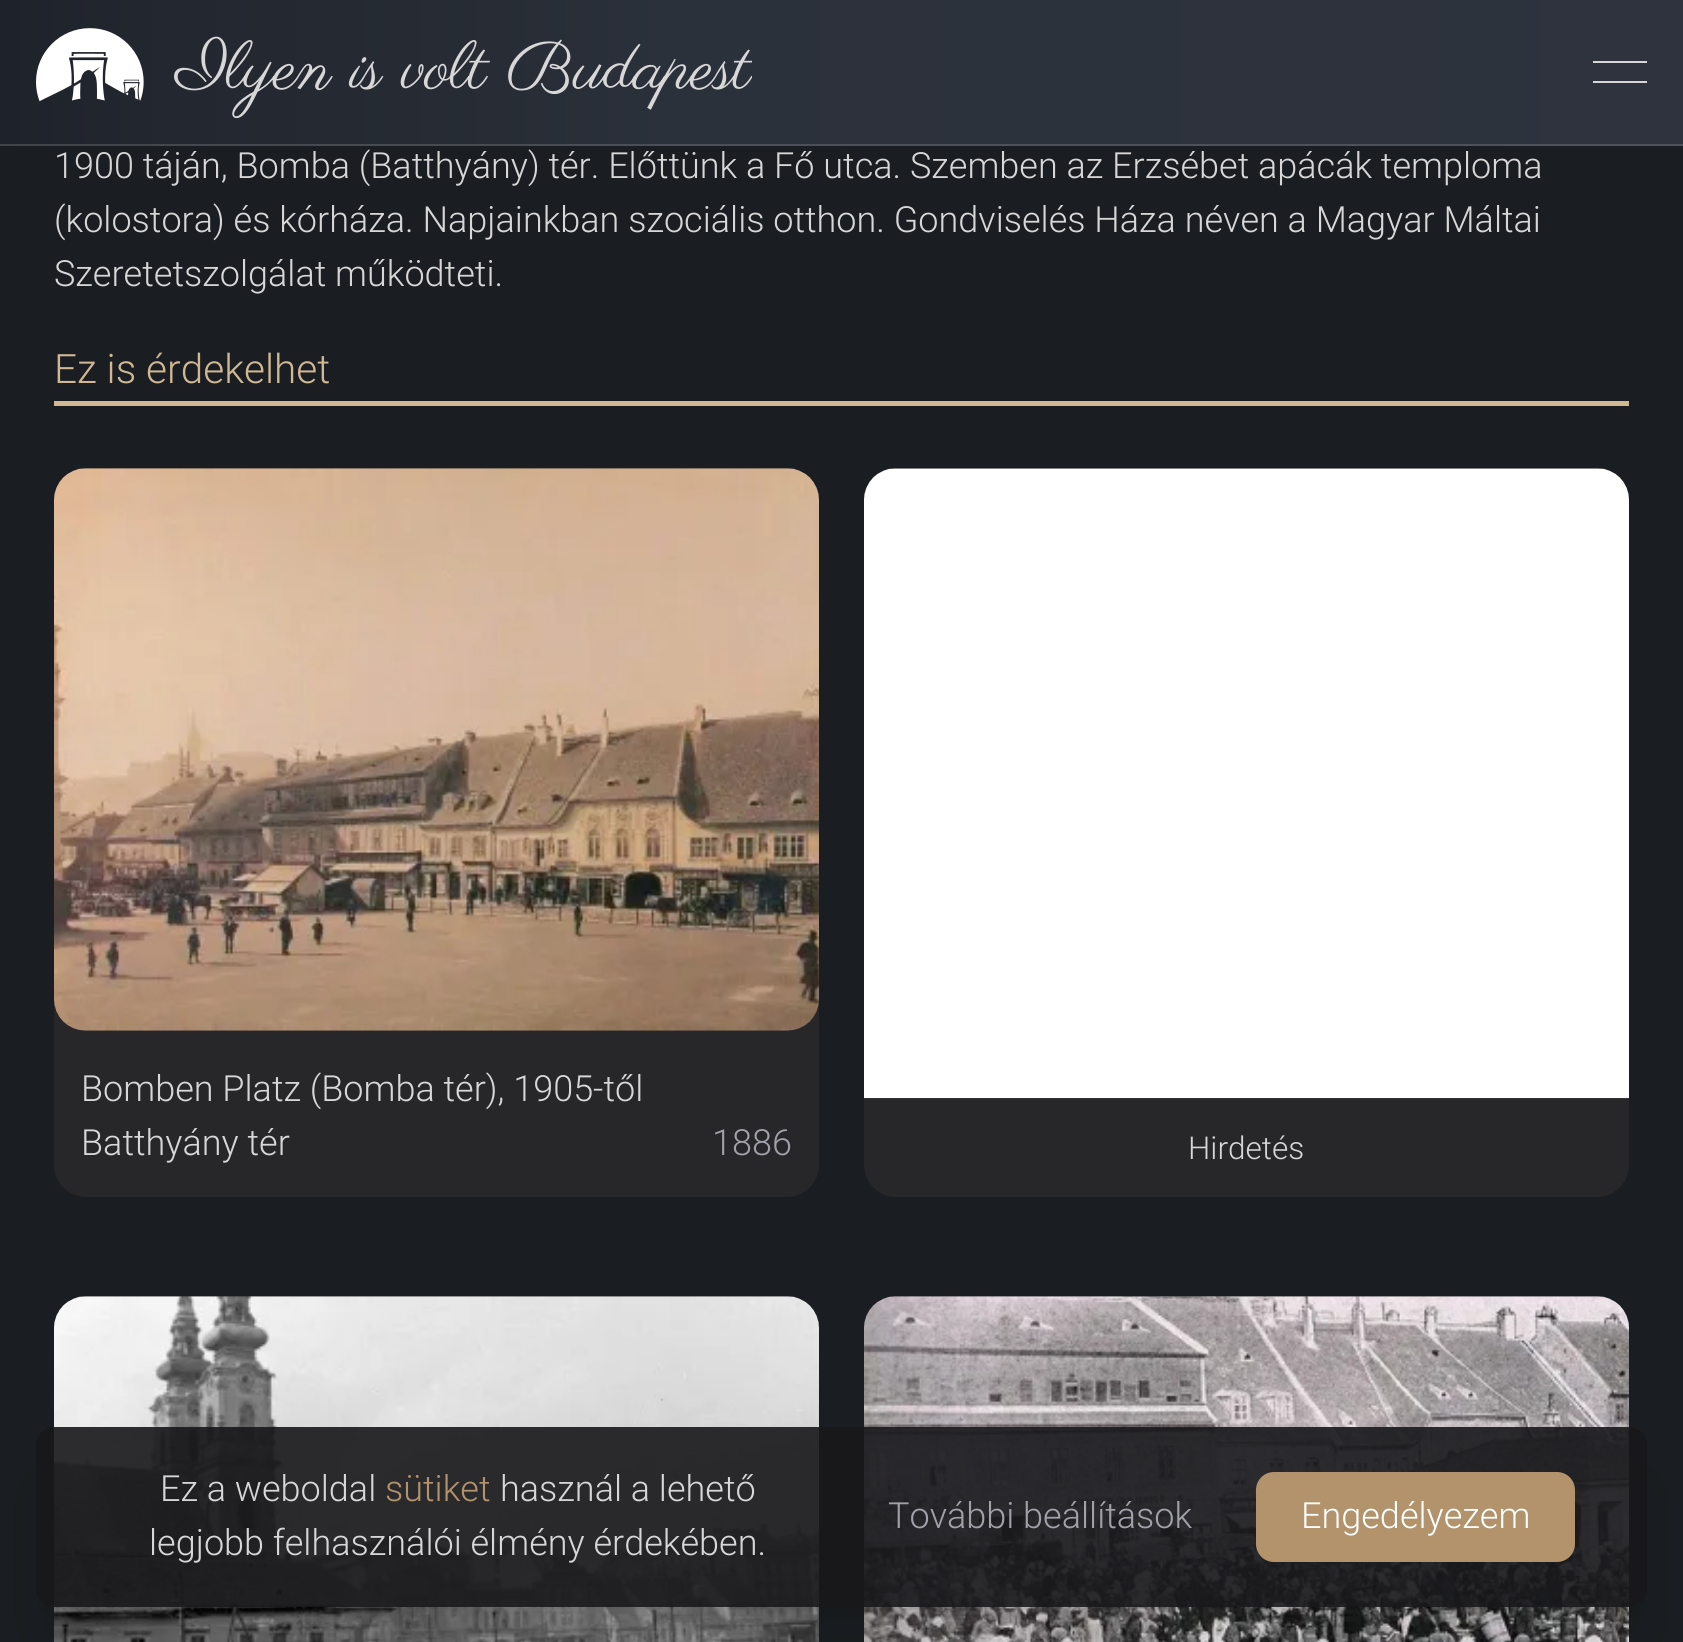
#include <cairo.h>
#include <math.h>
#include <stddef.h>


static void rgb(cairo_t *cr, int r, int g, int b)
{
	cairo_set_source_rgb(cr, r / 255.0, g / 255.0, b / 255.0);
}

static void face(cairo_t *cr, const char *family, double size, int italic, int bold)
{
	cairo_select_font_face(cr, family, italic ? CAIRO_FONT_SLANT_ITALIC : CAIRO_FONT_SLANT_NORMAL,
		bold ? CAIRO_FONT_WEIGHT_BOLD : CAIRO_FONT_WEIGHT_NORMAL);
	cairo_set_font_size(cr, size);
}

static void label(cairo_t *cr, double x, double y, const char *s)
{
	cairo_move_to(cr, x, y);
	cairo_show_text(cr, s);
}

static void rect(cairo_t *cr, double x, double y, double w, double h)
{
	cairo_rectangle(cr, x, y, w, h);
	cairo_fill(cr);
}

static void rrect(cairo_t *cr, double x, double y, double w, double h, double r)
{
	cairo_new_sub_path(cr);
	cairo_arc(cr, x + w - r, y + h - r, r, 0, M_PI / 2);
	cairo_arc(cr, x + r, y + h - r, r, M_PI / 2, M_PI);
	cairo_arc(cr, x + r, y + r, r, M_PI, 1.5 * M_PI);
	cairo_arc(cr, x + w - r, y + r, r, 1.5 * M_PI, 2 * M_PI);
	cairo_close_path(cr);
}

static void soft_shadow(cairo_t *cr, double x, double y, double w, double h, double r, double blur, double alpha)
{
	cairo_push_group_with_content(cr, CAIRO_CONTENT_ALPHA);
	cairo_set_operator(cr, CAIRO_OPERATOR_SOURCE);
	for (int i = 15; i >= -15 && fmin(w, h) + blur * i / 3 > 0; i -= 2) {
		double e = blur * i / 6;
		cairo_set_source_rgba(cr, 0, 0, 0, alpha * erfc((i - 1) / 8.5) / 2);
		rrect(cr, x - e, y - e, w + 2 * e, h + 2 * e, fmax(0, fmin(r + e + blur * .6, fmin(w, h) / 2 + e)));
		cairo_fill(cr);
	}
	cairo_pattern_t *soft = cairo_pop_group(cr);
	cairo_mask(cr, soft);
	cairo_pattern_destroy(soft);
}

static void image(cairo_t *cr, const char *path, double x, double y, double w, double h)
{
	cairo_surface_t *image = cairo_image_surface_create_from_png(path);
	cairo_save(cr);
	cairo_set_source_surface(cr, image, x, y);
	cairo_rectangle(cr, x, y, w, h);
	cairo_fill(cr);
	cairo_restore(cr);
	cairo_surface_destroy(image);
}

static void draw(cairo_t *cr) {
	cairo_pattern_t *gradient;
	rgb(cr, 26, 29, 33);
	cairo_paint(cr);
	gradient = cairo_pattern_create_linear(0, 821, 1683, 821);
	cairo_pattern_add_color_stop_rgba(gradient, 0, 0.118, 0.133, 0.161, 1);
	cairo_pattern_add_color_stop_rgba(gradient, 0.1, 0.137, 0.153, 0.184, 1);
	cairo_pattern_add_color_stop_rgba(gradient, 0.2, 0.145, 0.165, 0.196, 1);
	cairo_pattern_add_color_stop_rgba(gradient, 0.3, 0.153, 0.173, 0.208, 1);
	cairo_pattern_add_color_stop_rgba(gradient, 0.4, 0.169, 0.192, 0.231, 1);
	cairo_pattern_add_color_stop_rgba(gradient, 1, 0.18, 0.2, 0.243, 1);
	cairo_set_source(cr, gradient);
	cairo_pattern_destroy(gradient);
	rect(cr, 0, 0, 1683, 144);
	gradient = cairo_pattern_create_linear(0, 821, 1683, 821);
	cairo_pattern_add_color_stop_rgba(gradient, 0, 0.251, 0.263, 0.286, 1);
	cairo_pattern_add_color_stop_rgba(gradient, 0.1, 0.267, 0.278, 0.306, 1);
	cairo_pattern_add_color_stop_rgba(gradient, 0.2, 0.275, 0.29, 0.318, 1);
	cairo_pattern_add_color_stop_rgba(gradient, 0.3, 0.278, 0.298, 0.325, 1);
	cairo_pattern_add_color_stop_rgba(gradient, 0.4, 0.294, 0.314, 0.345, 1);
	cairo_pattern_add_color_stop_rgba(gradient, 1, 0.302, 0.322, 0.357, 1);
	cairo_set_source(cr, gradient);
	cairo_pattern_destroy(gradient);
	rect(cr, 0, 144, 1683, 2);
	image(cr, "image0.png", 36, 28, 108, 74);
	cairo_save(cr);
	cairo_rectangle(cr, 171, 23, 581, 99);
	cairo_clip(cr);
	face(cr, "Parisienne", 67.5, 0, 0);
	rgb(cr, 215, 215, 215);
	label(cr, 176, 88, "Ilyen is volt Budapest");
	cairo_restore(cr);
	rgb(cr, 215, 215, 215);
	rect(cr, 1593, 61, 54, 2);
	rect(cr, 1593, 81, 54, 2);
	face(cr, "Roboto Light", 36, 0, 0);
	label(cr, 54, 178, "1900 táján, Bomba (Batthyány) tér. Előttünk a Fő utca. Szemben az Erzsébet apácák temploma");
	label(cr, 54, 232, "(kolostora) és kórháza. Napjainkban szociális otthon. Gondviselés Háza néven a Magyar Máltai");
	label(cr, 54, 286, "Szeretetszolgálat működteti.");
	rgb(cr, 208, 184, 147);
	rect(cr, 54, 401, 1575, 5);
	face(cr, "Roboto Light", 40.5, 0, 0);
	label(cr, 54, 383, "Ez is érdekelhet");
	rgb(cr, 39, 39, 42);
	cairo_new_path(cr);
	cairo_move_to(cr, 86, 468);
	cairo_line_to(cr, 787, 468);
	cairo_curve_to(cr, 804.5, 468, 819, 482.5, 819, 500);
	cairo_line_to(cr, 819, 1031);
	cairo_line_to(cr, 54, 1031);
	cairo_line_to(cr, 54, 500);
	cairo_curve_to(cr, 54, 482.5, 68.5, 468, 86, 468);
	cairo_close_path(cr);
	cairo_fill(cr);
	image(cr, "image1.png", 54, 468, 765, 563);
	cairo_new_path(cr);
	cairo_move_to(cr, 54, 1031);
	cairo_line_to(cr, 819, 1031);
	cairo_line_to(cr, 819, 1165);
	cairo_curve_to(cr, 819, 1182.5, 804.5, 1197, 787, 1197);
	cairo_line_to(cr, 86, 1197);
	cairo_curve_to(cr, 68.5, 1197, 54, 1182.5, 54, 1165);
	cairo_close_path(cr);
	cairo_fill(cr);
	face(cr, "Roboto Light", 36, 0, 0);
	rgb(cr, 215, 215, 215);
	label(cr, 81, 1101, "Bomben Platz (Bomba tér), 1905-től");
	label(cr, 81, 1155, "Batthyány tér");
	rgb(cr, 161, 161, 170);
	label(cr, 712, 1155, "1886");
	rgb(cr, 39, 39, 42);
	cairo_new_path(cr);
	cairo_move_to(cr, 896, 468);
	cairo_line_to(cr, 1597, 468);
	cairo_curve_to(cr, 1614.5, 468, 1629, 482.5, 1629, 500);
	cairo_line_to(cr, 1629, 1098);
	cairo_line_to(cr, 864, 1098);
	cairo_line_to(cr, 864, 500);
	cairo_curve_to(cr, 864, 482.5, 878.5, 468, 896, 468);
	cairo_close_path(cr);
	cairo_fill(cr);
	cairo_new_path(cr);
	cairo_move_to(cr, 864, 1098);
	cairo_line_to(cr, 1629, 1098);
	cairo_line_to(cr, 1629, 1165);
	cairo_curve_to(cr, 1629, 1182.5, 1614.5, 1197, 1597, 1197);
	cairo_line_to(cr, 896, 1197);
	cairo_curve_to(cr, 878.5, 1197, 864, 1182.5, 864, 1165);
	cairo_close_path(cr);
	cairo_fill(cr);
	image(cr, "image2.png", 864, 468, 765, 631);
	face(cr, "Roboto Light", 31.5, 0, 0);
	rgb(cr, 215, 215, 215);
	label(cr, 1188, 1159, "Hirdetés");
	rgb(cr, 39, 39, 42);
	cairo_new_path(cr);
	cairo_move_to(cr, 86, 1296);
	cairo_line_to(cr, 787, 1296);
	cairo_curve_to(cr, 804.5, 1296, 819, 1310.5, 819, 1328);
	cairo_line_to(cr, 819, 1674);
	cairo_line_to(cr, 54, 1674);
	cairo_line_to(cr, 54, 1328);
	cairo_curve_to(cr, 54, 1310.5, 68.5, 1296, 86, 1296);
	cairo_close_path(cr);
	cairo_fill(cr);
	image(cr, "image3.png", 54, 1296, 765, 346);
	cairo_new_path(cr);
	cairo_move_to(cr, 896, 1296);
	cairo_line_to(cr, 1597, 1296);
	cairo_curve_to(cr, 1614.5, 1296, 1629, 1310.5, 1629, 1328);
	cairo_line_to(cr, 1629, 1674);
	cairo_line_to(cr, 864, 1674);
	cairo_line_to(cr, 864, 1328);
	cairo_curve_to(cr, 864, 1310.5, 878.5, 1296, 896, 1296);
	cairo_close_path(cr);
	cairo_fill(cr);
	image(cr, "image4.png", 864, 1296, 765, 346);
	cairo_save(cr);
	cairo_set_fill_rule(cr, CAIRO_FILL_RULE_EVEN_ODD);
	cairo_new_path(cr);
	cairo_move_to(cr, 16, 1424);
	cairo_line_to(cr, 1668, 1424);
	cairo_line_to(cr, 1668, 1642);
	cairo_line_to(cr, 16, 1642);
	cairo_close_path(cr);
	cairo_move_to(cr, 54, 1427);
	cairo_line_to(cr, 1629, 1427);
	cairo_curve_to(cr, 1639, 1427, 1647, 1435, 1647, 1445);
	cairo_line_to(cr, 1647, 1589);
	cairo_curve_to(cr, 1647, 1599, 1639, 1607, 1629, 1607);
	cairo_line_to(cr, 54, 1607);
	cairo_curve_to(cr, 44, 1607, 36, 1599, 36, 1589);
	cairo_line_to(cr, 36, 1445);
	cairo_curve_to(cr, 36, 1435, 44, 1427, 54, 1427);
	cairo_close_path(cr);
	cairo_clip(cr);
	rgb(cr, 0, 0, 0);
	soft_shadow(cr, 50, 1458, 1584, 153, 5, 11, 0.1);
	cairo_restore(cr);
	cairo_save(cr);
	cairo_set_fill_rule(cr, CAIRO_FILL_RULE_EVEN_ODD);
	cairo_new_path(cr);
	cairo_move_to(cr, 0, 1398);
	cairo_line_to(cr, 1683, 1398);
	cairo_line_to(cr, 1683, 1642);
	cairo_line_to(cr, 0, 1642);
	cairo_close_path(cr);
	cairo_move_to(cr, 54, 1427);
	cairo_line_to(cr, 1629, 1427);
	cairo_curve_to(cr, 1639, 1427, 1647, 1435, 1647, 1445);
	cairo_line_to(cr, 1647, 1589);
	cairo_curve_to(cr, 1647, 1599, 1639, 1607, 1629, 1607);
	cairo_line_to(cr, 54, 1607);
	cairo_curve_to(cr, 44, 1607, 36, 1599, 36, 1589);
	cairo_line_to(cr, 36, 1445);
	cairo_curve_to(cr, 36, 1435, 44, 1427, 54, 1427);
	cairo_close_path(cr);
	cairo_clip(cr);
	rgb(cr, 0, 0, 0);
	soft_shadow(cr, 47, 1483, 1589, 157, 7, 28, 0.1);
	cairo_restore(cr);
	cairo_set_source_rgba(cr, 0.094, 0.094, 0.106, 0.9);
	rrect(cr, 36, 1427, 1611, 180, 18);
	cairo_fill(cr);
	face(cr, "Roboto Light", 36, 0, 0);
	rgb(cr, 215, 215, 215);
	label(cr, 160, 1501, "Ez a weboldal");
	rgb(cr, 178, 147, 108);
	label(cr, 385, 1501, "sütiket");
	rgb(cr, 215, 215, 215);
	label(cr, 500, 1501, "használ a lehető");
	label(cr, 149, 1555, "legjobb felhasználói élmény érdekében.");
	rgb(cr, 161, 161, 170);
	label(cr, 888, 1528, "További beállítások");
	rgb(cr, 178, 147, 108);
	rrect(cr, 1256, 1472, 319, 90, 18);
	cairo_fill(cr);
	rgb(cr, 255, 255, 255);
	label(cr, 1301, 1528, "Engedélyezem");
}

int main(void) {
	cairo_surface_t *surface = cairo_image_surface_create(CAIRO_FORMAT_RGB24, 1683, 1642);
	cairo_t *cr = cairo_create(surface);
	cairo_font_options_t *options = cairo_font_options_create();
	cairo_font_options_set_hint_metrics(options, CAIRO_HINT_METRICS_OFF);
	cairo_font_options_set_hint_style(options, CAIRO_HINT_STYLE_NONE);
	cairo_set_font_options(cr, options);
	cairo_set_miter_limit(cr, 4);
	draw(cr);
	cairo_surface_write_to_png(surface, "render.png");
	cairo_font_options_destroy(options);
	cairo_destroy(cr);
	cairo_surface_destroy(surface);
	return 0;
}
